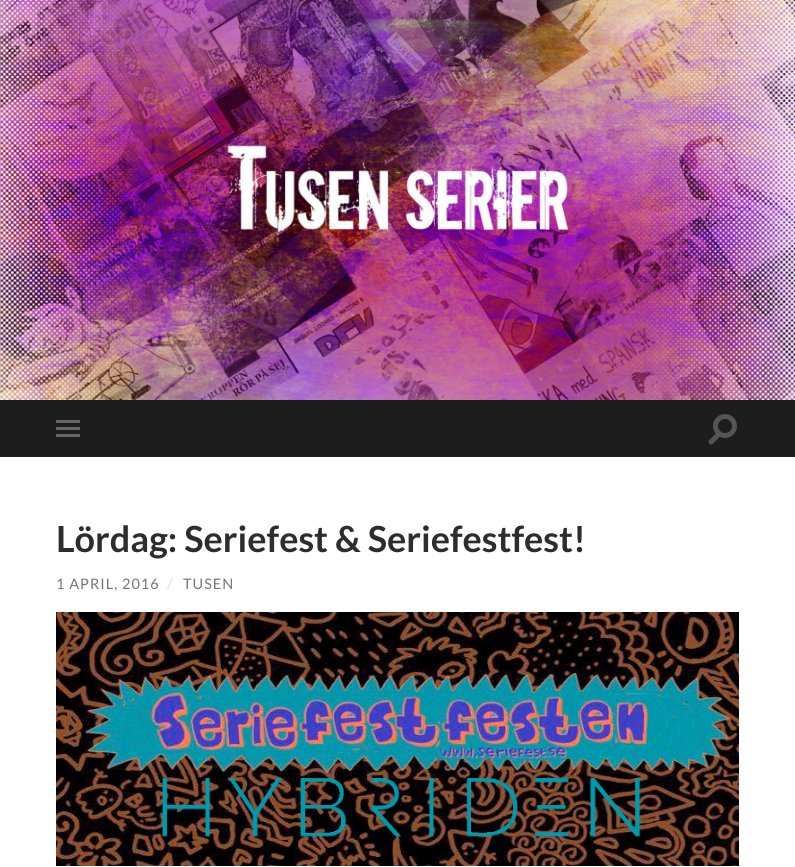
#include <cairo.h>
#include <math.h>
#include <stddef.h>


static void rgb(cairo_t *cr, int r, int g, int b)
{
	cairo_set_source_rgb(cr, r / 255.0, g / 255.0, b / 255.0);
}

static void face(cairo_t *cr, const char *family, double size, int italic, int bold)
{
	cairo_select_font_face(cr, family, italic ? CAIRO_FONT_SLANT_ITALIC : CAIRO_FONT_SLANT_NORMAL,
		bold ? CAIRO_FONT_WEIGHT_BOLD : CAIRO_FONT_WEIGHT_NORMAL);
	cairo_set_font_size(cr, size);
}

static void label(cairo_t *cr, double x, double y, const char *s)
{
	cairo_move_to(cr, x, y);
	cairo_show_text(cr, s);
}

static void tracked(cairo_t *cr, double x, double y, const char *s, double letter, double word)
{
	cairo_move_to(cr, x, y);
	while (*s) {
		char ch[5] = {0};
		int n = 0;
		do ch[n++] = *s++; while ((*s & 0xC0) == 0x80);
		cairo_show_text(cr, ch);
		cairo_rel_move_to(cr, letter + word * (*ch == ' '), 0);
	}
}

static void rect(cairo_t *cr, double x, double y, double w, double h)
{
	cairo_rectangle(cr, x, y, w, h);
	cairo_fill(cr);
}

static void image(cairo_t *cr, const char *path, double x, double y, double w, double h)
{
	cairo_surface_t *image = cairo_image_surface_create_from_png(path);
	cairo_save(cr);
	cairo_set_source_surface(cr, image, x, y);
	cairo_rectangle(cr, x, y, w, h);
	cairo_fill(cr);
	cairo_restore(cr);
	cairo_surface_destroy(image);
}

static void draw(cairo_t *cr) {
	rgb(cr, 255, 255, 255);
	cairo_paint(cr);
	image(cr, "image0.png", 0, 0, 795, 400);
	rgb(cr, 29, 29, 29);
	rect(cr, 0, 400, 795, 57);
	rgb(cr, 102, 102, 102);
	rect(cr, 56, 420, 24, 3);
	rect(cr, 56, 427, 24, 3);
	rect(cr, 56, 434, 24, 3);
	rgb(cr, 85, 85, 85);
	cairo_arc(cr, 725, 426, 12, 0, 2 * M_PI);
	cairo_fill(cr);
	rgb(cr, 29, 29, 29);
	cairo_arc(cr, 725, 426, 7, 0, 2 * M_PI);
	cairo_fill(cr);
	rgb(cr, 85, 85, 85);
	cairo_new_path(cr);
	cairo_move_to(cr, 709, 440.5);
	cairo_line_to(cr, 717.5, 432);
	cairo_line_to(cr, 721, 435.5);
	cairo_line_to(cr, 715.5, 441);
	cairo_curve_to(cr, 713.5, 443, 711, 446.5, 709, 443);
	cairo_curve_to(cr, 708.5, 442, 708.5, 441, 709, 440.5);
	cairo_close_path(cr);
	cairo_fill(cr);
	face(cr, "Lato", 36, 0, 1);
	rgb(cr, 45, 45, 45);
	label(cr, 56, 552, "Lördag: Seriefest & Seriefestfest!");
	face(cr, "Lato", 14.5, 0, 0);
	rgb(cr, 118, 118, 118);
	tracked(cr, 56, 589, "1 APRIL, 2016", 1, 0);
	rgb(cr, 221, 221, 221);
	tracked(cr, 167, 589, "/", 1, 0);
	rgb(cr, 118, 118, 118);
	tracked(cr, 183, 589, "TUSEN", 1, 0);
	image(cr, "image1.png", 56, 612, 683, 254);
}

int main(void) {
	cairo_surface_t *surface = cairo_image_surface_create(CAIRO_FORMAT_RGB24, 795, 867);
	cairo_t *cr = cairo_create(surface);
	cairo_font_options_t *options = cairo_font_options_create();
	cairo_font_options_set_hint_metrics(options, CAIRO_HINT_METRICS_OFF);
	cairo_font_options_set_hint_style(options, CAIRO_HINT_STYLE_NONE);
	cairo_set_font_options(cr, options);
	cairo_set_miter_limit(cr, 4);
	draw(cr);
	cairo_surface_write_to_png(surface, "render.png");
	cairo_font_options_destroy(options);
	cairo_destroy(cr);
	cairo_surface_destroy(surface);
	return 0;
}
